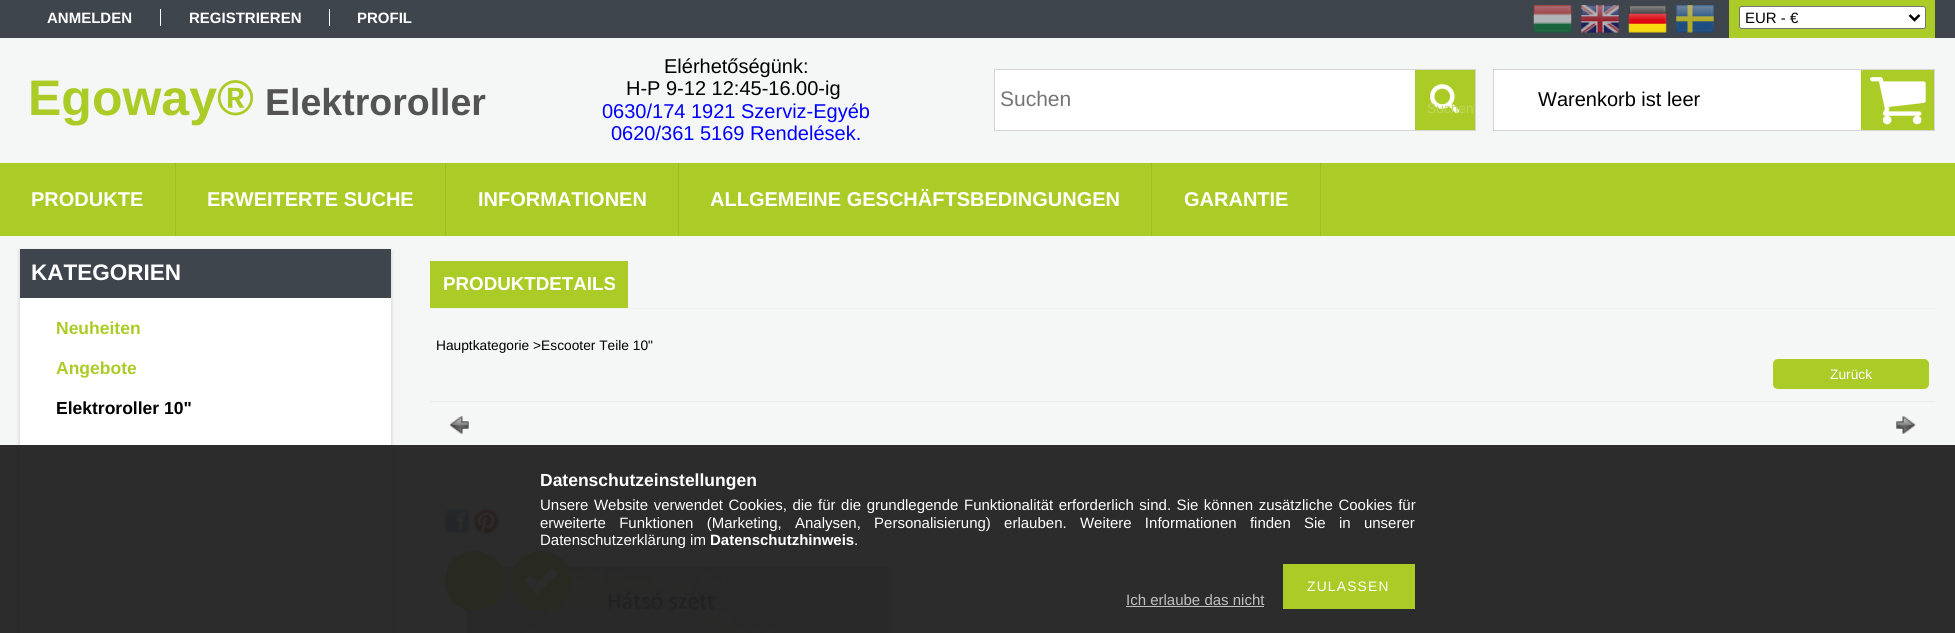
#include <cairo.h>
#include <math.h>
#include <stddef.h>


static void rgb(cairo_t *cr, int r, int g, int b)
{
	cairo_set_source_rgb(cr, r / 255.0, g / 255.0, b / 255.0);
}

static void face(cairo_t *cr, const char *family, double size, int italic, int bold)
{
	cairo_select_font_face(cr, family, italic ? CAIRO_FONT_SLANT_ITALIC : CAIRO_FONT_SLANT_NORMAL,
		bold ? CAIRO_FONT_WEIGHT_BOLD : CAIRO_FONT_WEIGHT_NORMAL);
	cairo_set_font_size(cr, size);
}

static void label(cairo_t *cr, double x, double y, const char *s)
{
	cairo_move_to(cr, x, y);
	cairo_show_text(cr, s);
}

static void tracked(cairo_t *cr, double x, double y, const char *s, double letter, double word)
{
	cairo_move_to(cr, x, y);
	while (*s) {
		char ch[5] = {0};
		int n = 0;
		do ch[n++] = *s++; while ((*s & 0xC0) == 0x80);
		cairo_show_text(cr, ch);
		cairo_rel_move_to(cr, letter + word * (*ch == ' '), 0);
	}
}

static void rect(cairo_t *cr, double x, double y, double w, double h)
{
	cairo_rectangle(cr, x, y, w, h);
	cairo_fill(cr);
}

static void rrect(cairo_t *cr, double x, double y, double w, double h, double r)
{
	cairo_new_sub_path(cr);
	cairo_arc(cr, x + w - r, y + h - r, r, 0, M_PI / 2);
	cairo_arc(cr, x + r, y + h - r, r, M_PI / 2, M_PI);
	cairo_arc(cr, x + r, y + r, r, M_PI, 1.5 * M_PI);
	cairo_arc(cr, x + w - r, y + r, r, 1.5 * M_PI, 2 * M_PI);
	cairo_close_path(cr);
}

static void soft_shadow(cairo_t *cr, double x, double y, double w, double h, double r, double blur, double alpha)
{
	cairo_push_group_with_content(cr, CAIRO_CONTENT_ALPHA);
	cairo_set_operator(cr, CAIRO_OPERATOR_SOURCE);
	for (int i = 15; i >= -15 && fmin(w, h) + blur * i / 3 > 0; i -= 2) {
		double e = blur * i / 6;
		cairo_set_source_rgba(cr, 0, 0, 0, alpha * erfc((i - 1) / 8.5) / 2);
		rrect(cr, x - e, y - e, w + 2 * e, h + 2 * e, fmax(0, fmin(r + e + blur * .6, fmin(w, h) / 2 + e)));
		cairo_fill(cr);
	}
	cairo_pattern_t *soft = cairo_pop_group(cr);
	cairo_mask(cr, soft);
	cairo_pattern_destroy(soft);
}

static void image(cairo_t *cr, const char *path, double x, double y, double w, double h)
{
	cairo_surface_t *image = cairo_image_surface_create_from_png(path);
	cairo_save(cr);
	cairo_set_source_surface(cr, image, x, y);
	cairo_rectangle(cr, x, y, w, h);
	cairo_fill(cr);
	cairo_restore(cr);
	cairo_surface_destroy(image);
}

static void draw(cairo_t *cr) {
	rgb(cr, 245, 246, 246);
	cairo_paint(cr);
	rgb(cr, 62, 69, 76);
	rect(cr, 0, 0, 1955, 38);
	face(cr, "Liberation Sans", 15, 0, 1);
	rgb(cr, 255, 255, 255);
	label(cr, 47, 23, "ANMELDEN");
	rect(cr, 160, 9, 1, 17);
	label(cr, 189, 23, "REGISTRIEREN");
	rect(cr, 329, 9, 1, 17);
	label(cr, 357, 23, "PROFIL");
	image(cr, "image0.png", 1533, 5, 39, 28);
	image(cr, "image1.png", 1581, 5, 38, 28);
	image(cr, "image2.png", 1628, 5, 39, 28);
	image(cr, "image3.png", 1676, 5, 38, 28);
	rgb(cr, 171, 204, 39);
	rect(cr, 1729, 0, 206, 38);
	rgb(cr, 255, 255, 255);
	rrect(cr, 1739.5, 6.5, 186, 22, 2);
	cairo_fill_preserve(cr);
	rgb(cr, 118, 118, 118);
	cairo_set_line_width(cr, 1);
	cairo_stroke(cr);
	cairo_new_path(cr);
	cairo_move_to(cr, 1909.5, 15);
	cairo_line_to(cr, 1914.5, 20);
	cairo_line_to(cr, 1919.5, 15);
	rgb(cr, 0, 0, 0);
	cairo_set_line_width(cr, 2.5);
	cairo_stroke(cr);
	face(cr, "Liberation Sans", 15, 0, 0);
	label(cr, 1745, 23, "EUR - €");
	face(cr, "Liberation Sans", 50, 0, 1);
	rgb(cr, 171, 204, 39);
	label(cr, 28, 115, "Egoway®");
	face(cr, "Liberation Sans", 37.5, 0, 1);
	rgb(cr, 83, 83, 83);
	label(cr, 265, 115, "Elektroroller");
	face(cr, "Liberation Sans", 20, 0, 0);
	rgb(cr, 0, 0, 0);
	label(cr, 664, 73, "Elérhetőségünk:");
	label(cr, 626, 95, "H-P 9-12 12:45-16.00-ig");
	rgb(cr, 0, 0, 255);
	label(cr, 602, 118, "0630/174 1921 Szerviz-Egyéb");
	label(cr, 611, 140, "0620/361 5169 Rendelések.");
	rgb(cr, 255, 255, 255);
	rect(cr, 995, 70, 420, 60);
	cairo_rectangle(cr, 994.5, 69.5, 481, 61);
	rgb(cr, 212, 212, 212);
	cairo_set_line_width(cr, 1);
	cairo_stroke(cr);
	face(cr, "Liberation Sans", 21, 0, 0);
	rgb(cr, 117, 117, 117);
	label(cr, 1000, 106, "Suchen");
	rgb(cr, 171, 204, 39);
	rect(cr, 1415, 70, 60, 60);
	image(cr, "image4.png", 1430, 84, 29, 30);
	face(cr, "Liberation Sans", 13.75, 0, 0);
	rgb(cr, 191, 216, 90);
	label(cr, 1427, 113, "Suchen");
	rgb(cr, 255, 255, 255);
	rect(cr, 1494, 70, 367, 60);
	cairo_rectangle(cr, 1493.5, 69.5, 441, 61);
	rgb(cr, 212, 212, 212);
	cairo_stroke(cr);
	face(cr, "Liberation Sans", 20, 0, 0);
	rgb(cr, 0, 0, 0);
	label(cr, 1538, 106, "Warenkorb ist leer");
	rgb(cr, 171, 204, 39);
	rect(cr, 1861, 70, 73, 60);
	image(cr, "image5.png", 1870, 77, 56, 48);
	rect(cr, 0, 163, 1955, 73);
	rgb(cr, 159, 190, 36);
	rect(cr, 175, 163, 1, 73);
	face(cr, "Liberation Sans", 20, 0, 1);
	rgb(cr, 255, 255, 255);
	label(cr, 31, 206, "PRODUKTE");
	rgb(cr, 159, 190, 36);
	rect(cr, 445, 163, 1, 73);
	rgb(cr, 255, 255, 255);
	label(cr, 207, 206, "ERWEITERTE SUCHE");
	rgb(cr, 159, 190, 36);
	rect(cr, 678, 163, 1, 73);
	rgb(cr, 255, 255, 255);
	label(cr, 478, 206, "INFORMATIONEN");
	rgb(cr, 159, 190, 36);
	rect(cr, 1151, 163, 1, 73);
	rgb(cr, 255, 255, 255);
	label(cr, 710, 206, "ALLGEMEINE GESCHÄFTSBEDINGUNGEN");
	rgb(cr, 159, 190, 36);
	rect(cr, 1320, 163, 1, 73);
	rgb(cr, 255, 255, 255);
	label(cr, 1184, 206, "GARANTIE");
	rgb(cr, 0, 0, 0);
	soft_shadow(cr, 20, 251, 371, 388, 0, 2, 0.2);
	rgb(cr, 62, 69, 76);
	rect(cr, 20, 249, 371, 49);
	face(cr, "Liberation Sans", 22.5, 0, 1);
	rgb(cr, 255, 255, 255);
	label(cr, 31, 280, "KATEGORIEN");
	rect(cr, 20, 298, 371, 335);
	face(cr, "Liberation Sans", 17.5, 0, 1);
	rgb(cr, 171, 204, 39);
	label(cr, 56, 334, "Neuheiten");
	label(cr, 56, 374, "Angebote");
	rgb(cr, 0, 0, 0);
	label(cr, 56, 414, "Elektroroller 10\"");
	rgb(cr, 239, 239, 239);
	rect(cr, 430, 308, 1505, 1);
	rgb(cr, 171, 204, 39);
	rect(cr, 430, 261, 198, 47);
	face(cr, "Liberation Sans", 18.75, 0, 1);
	rgb(cr, 255, 255, 255);
	label(cr, 443, 290, "PRODUKTDETAILS");
	face(cr, "Liberation Sans", 13.75, 0, 0);
	rgb(cr, 0, 0, 0);
	label(cr, 436, 350, "Hauptkategorie >Escooter Teile 10\"");
	rgb(cr, 171, 204, 39);
	rrect(cr, 1773, 359, 156, 30, 5);
	cairo_fill(cr);
	rgb(cr, 255, 255, 255);
	label(cr, 1830, 379, "Zurück");
	rgb(cr, 236, 234, 234);
	rect(cr, 430, 401, 1505, 1);
	image(cr, "image6.png", 449, 416, 20, 18);
	image(cr, "image7.png", 1896, 416, 20, 18);
	rect(cr, 430, 448, 1505, 1);
	rect(cr, 445, 546, 1475, 1);
	image(cr, "image8.png", 445, 508, 25, 26);
	image(cr, "image9.png", 473, 508, 26, 26);
	image(cr, "image11.png", 466, 566, 423, 67);
	rgb(cr, 171, 204, 39);
	cairo_arc(cr, 475, 581, 30, 0, 2 * M_PI);
	cairo_fill(cr);
	cairo_arc(cr, 541, 581, 30, 0, 2 * M_PI);
	cairo_fill(cr);
	image(cr, "image10.png", 525, 568, 33, 26);
	cairo_set_source_rgba(cr, 0.133, 0.133, 0.133, 0.95);
	rect(cr, 0, 445, 1955, 188);
	face(cr, "Liberation Sans", 17.5, 0, 1);
	rgb(cr, 255, 255, 255);
	label(cr, 540, 486, "Datenschutzeinstellungen");
	face(cr, "Liberation Sans", 15, 0, 0);
	tracked(cr, 540, 510, "Unsere Website verwendet Cookies, die für die grundlegende Funktionalität erforderlich sind. Sie können zusätzliche Cookies für", 0, 1.4);
	tracked(cr, 540, 528, "erweiterte Funktionen (Marketing, Analysen, Personalisierung) erlauben. Weitere Informationen finden Sie in unserer", 0, 9.1);
	label(cr, 540, 545, "Datenschutzerklärung im");
	face(cr, "Liberation Sans", 15, 0, 1);
	label(cr, 710, 545, "Datenschutzhinweis");
	face(cr, "Liberation Sans", 15, 0, 0);
	label(cr, 854, 545, ".");
	rgb(cr, 171, 204, 39);
	rect(cr, 1283, 564, 132, 45);
	face(cr, "Liberation Sans", 13.75, 0, 0);
	rgb(cr, 255, 255, 255);
	tracked(cr, 1307, 591, "ZULASSEN", 1.25, 0);
	face(cr, "Liberation Sans", 15, 0, 0);
	rgb(cr, 192, 192, 192);
	label(cr, 1126, 605, "Ich erlaube das nicht");
	rect(cr, 1126, 606, 138, 1);
}

int main(void) {
	cairo_surface_t *surface = cairo_image_surface_create(CAIRO_FORMAT_RGB24, 1955, 633);
	cairo_t *cr = cairo_create(surface);
	cairo_font_options_t *options = cairo_font_options_create();
	cairo_font_options_set_hint_metrics(options, CAIRO_HINT_METRICS_OFF);
	cairo_font_options_set_hint_style(options, CAIRO_HINT_STYLE_NONE);
	cairo_set_font_options(cr, options);
	cairo_set_miter_limit(cr, 4);
	draw(cr);
	cairo_surface_write_to_png(surface, "render.png");
	cairo_font_options_destroy(options);
	cairo_destroy(cr);
	cairo_surface_destroy(surface);
	return 0;
}
